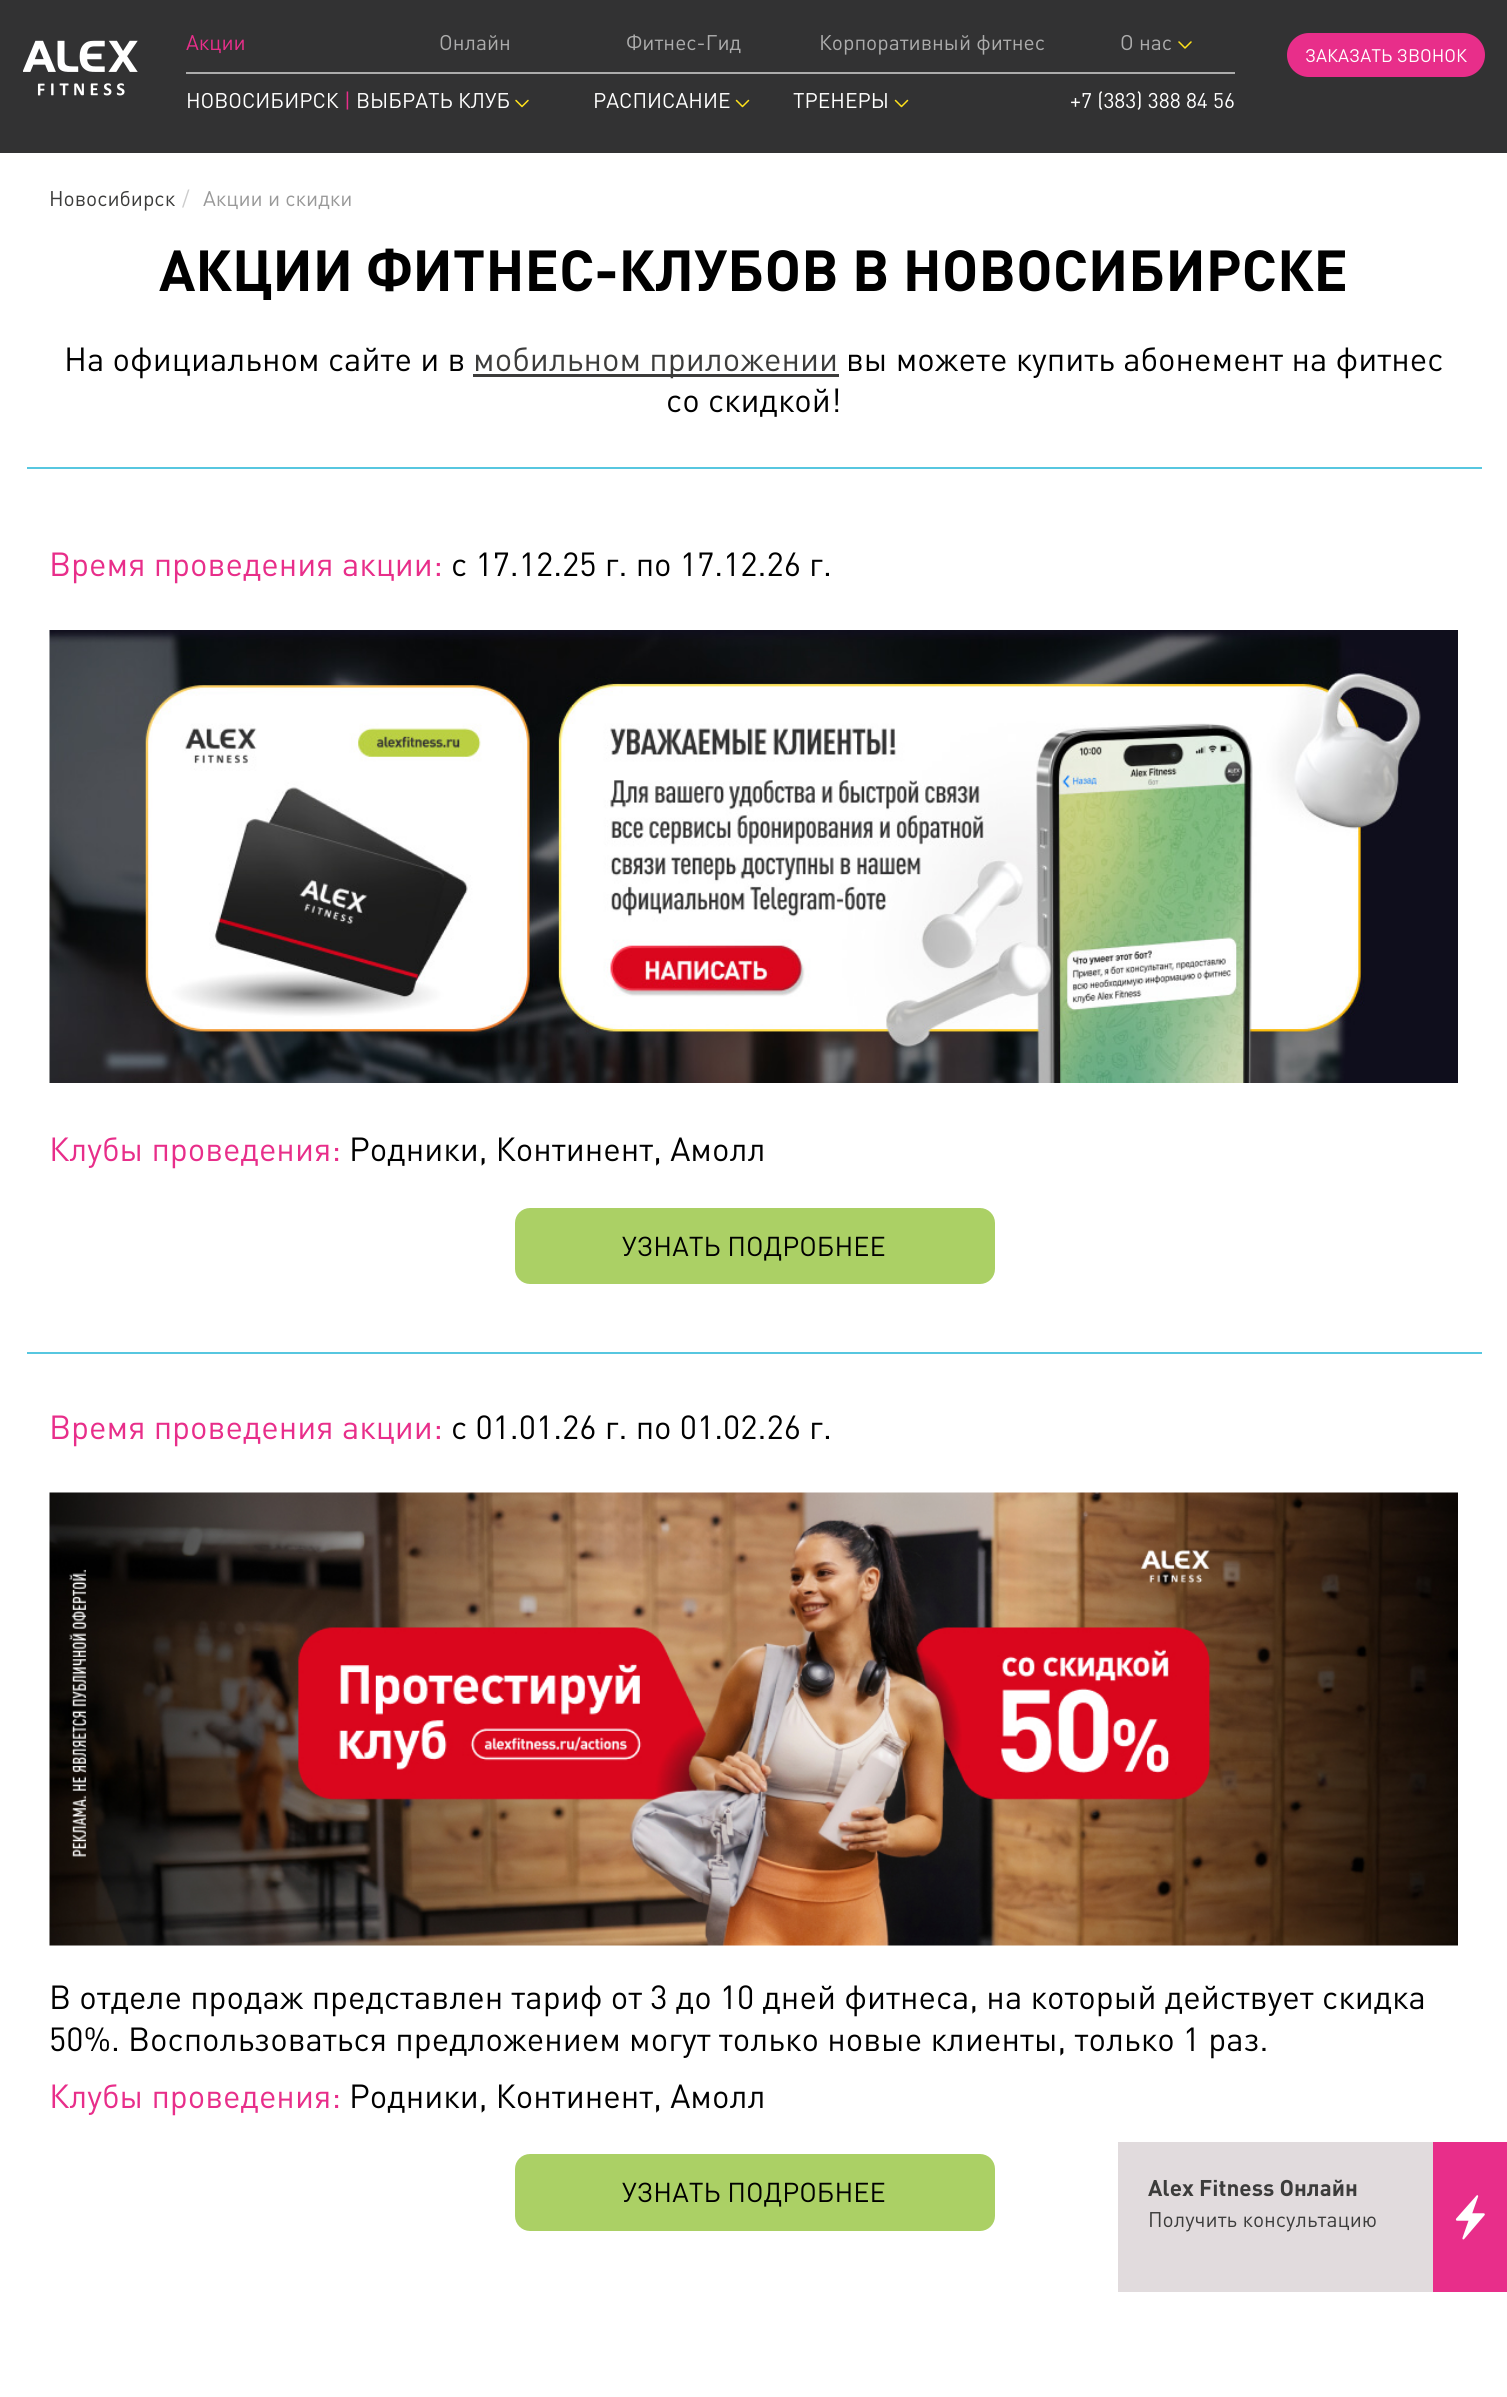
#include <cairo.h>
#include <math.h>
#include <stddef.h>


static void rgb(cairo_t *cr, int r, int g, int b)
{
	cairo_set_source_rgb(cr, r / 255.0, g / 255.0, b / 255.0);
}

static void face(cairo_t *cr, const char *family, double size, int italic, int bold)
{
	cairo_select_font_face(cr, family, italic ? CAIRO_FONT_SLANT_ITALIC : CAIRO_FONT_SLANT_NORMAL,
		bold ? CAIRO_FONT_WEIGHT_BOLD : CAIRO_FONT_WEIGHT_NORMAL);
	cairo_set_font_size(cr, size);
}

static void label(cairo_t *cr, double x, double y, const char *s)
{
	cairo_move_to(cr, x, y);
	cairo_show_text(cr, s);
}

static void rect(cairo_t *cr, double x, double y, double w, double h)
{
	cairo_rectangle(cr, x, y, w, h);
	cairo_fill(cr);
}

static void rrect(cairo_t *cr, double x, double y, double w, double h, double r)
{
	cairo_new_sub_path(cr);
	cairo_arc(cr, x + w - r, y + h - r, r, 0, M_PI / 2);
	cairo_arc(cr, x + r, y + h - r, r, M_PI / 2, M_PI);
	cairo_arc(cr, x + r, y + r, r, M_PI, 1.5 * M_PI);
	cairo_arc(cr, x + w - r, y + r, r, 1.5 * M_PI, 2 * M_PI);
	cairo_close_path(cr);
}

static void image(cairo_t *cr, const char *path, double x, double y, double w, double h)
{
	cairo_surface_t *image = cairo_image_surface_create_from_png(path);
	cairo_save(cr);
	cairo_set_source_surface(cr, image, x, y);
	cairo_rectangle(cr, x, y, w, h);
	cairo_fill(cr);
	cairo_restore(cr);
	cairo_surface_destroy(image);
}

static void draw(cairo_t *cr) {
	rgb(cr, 255, 255, 255);
	cairo_paint(cr);
	rgb(cr, 50, 50, 51);
	rect(cr, 0, 0, 1507, 153);
	image(cr, "image0.png", 23, 40, 115, 56);
	face(cr, "DIN", 21, 0, 0);
	rgb(cr, 232, 46, 138);
	label(cr, 186, 50, "Акции");
	rgb(cr, 172, 172, 172);
	label(cr, 439, 50, "Онлайн");
	label(cr, 626, 50, "Фитнес-Гид");
	label(cr, 819, 50, "Корпоративный фитнес");
	label(cr, 1120, 50, "О нас");
	cairo_new_path(cr);
	cairo_move_to(cr, 1179, 42);
	cairo_line_to(cr, 1185, 48);
	cairo_line_to(cr, 1191, 42);
	rgb(cr, 255, 226, 27);
	cairo_set_line_width(cr, 1.5);
	cairo_set_line_cap(cr, CAIRO_LINE_CAP_ROUND);
	cairo_set_line_join(cr, CAIRO_LINE_JOIN_ROUND);
	cairo_stroke(cr);
	rgb(cr, 172, 172, 172);
	rect(cr, 186, 72, 1049, 2);
	rgb(cr, 255, 255, 255);
	label(cr, 186, 108, "НОВОСИБИРСК");
	rgb(cr, 232, 46, 138);
	label(cr, 344, 108, "|");
	rgb(cr, 255, 255, 255);
	label(cr, 356, 108, "ВЫБРАТЬ КЛУБ");
	cairo_new_path(cr);
	cairo_move_to(cr, 516, 100.5);
	cairo_line_to(cr, 522, 106.5);
	cairo_line_to(cr, 528, 100.5);
	rgb(cr, 255, 226, 27);
	cairo_stroke(cr);
	rgb(cr, 255, 255, 255);
	label(cr, 593, 108, "РАСПИСАНИЕ");
	cairo_new_path(cr);
	cairo_move_to(cr, 736.5, 100.5);
	cairo_line_to(cr, 742.5, 106.5);
	cairo_line_to(cr, 748.5, 100.5);
	rgb(cr, 255, 226, 27);
	cairo_stroke(cr);
	rgb(cr, 255, 255, 255);
	label(cr, 793, 108, "ТРЕНЕРЫ");
	cairo_new_path(cr);
	cairo_move_to(cr, 895.5, 100.5);
	cairo_line_to(cr, 901.5, 106.5);
	cairo_line_to(cr, 907.5, 100.5);
	rgb(cr, 255, 226, 27);
	cairo_stroke(cr);
	rgb(cr, 255, 255, 255);
	label(cr, 1070, 108, "+7 (383) 388 84 56");
	rgb(cr, 232, 46, 138);
	rrect(cr, 1287, 33, 198, 44, 22);
	cairo_fill(cr);
	face(cr, "DIN", 18, 0, 0);
	rgb(cr, 255, 255, 255);
	label(cr, 1305, 62, "ЗАКАЗАТЬ ЗВОНОК");
	face(cr, "DIN", 21, 0, 0);
	rgb(cr, 60, 60, 59);
	label(cr, 49, 206, "Новосибирск");
	rgb(cr, 204, 204, 204);
	label(cr, 182, 206, "/");
	rgb(cr, 153, 153, 153);
	label(cr, 203, 206, "Акции и скидки");
	face(cr, "DIN", 57, 0, 1);
	rgb(cr, 0, 0, 0);
	label(cr, 159, 291, "АКЦИИ ФИТНЕС-КЛУБОВ В НОВОСИБИРСКЕ");
	face(cr, "DIN", 33, 0, 0);
	label(cr, 64, 371, "На официальном сайте и в");
	rgb(cr, 60, 60, 59);
	rect(cr, 473, 374, 366, 3);
	label(cr, 473, 371, "мобильном приложении");
	rgb(cr, 0, 0, 0);
	label(cr, 846, 371, "вы можете купить абонемент на фитнес");
	label(cr, 666, 412, "со скидкой!");
	rgb(cr, 87, 199, 224);
	rect(cr, 27, 467, 1455, 2);
	rect(cr, 27, 1352, 1455, 2);
	rgb(cr, 232, 46, 138);
	label(cr, 49, 576, "Время проведения акции:");
	rgb(cr, 0, 0, 0);
	label(cr, 451, 576, "с 17.12.25 г. по 17.12.26 г.");
	image(cr, "image1.png", 49, 630, 1409, 453);
	rgb(cr, 232, 46, 138);
	label(cr, 49, 1161, "Клубы проведения:");
	rgb(cr, 0, 0, 0);
	label(cr, 349, 1161, "Родники, Континент, Амолл");
	rgb(cr, 171, 208, 101);
	rrect(cr, 516, 1209, 478, 74, 14);
	cairo_fill_preserve(cr);
	cairo_set_line_width(cr, 2);
	cairo_set_line_cap(cr, CAIRO_LINE_CAP_BUTT);
	cairo_set_line_join(cr, CAIRO_LINE_JOIN_MITER);
	cairo_stroke(cr);
	face(cr, "DIN", 27, 0, 0);
	rgb(cr, 0, 0, 0);
	label(cr, 622, 1256, "УЗНАТЬ ПОДРОБНЕЕ");
	face(cr, "DIN", 33, 0, 0);
	rgb(cr, 232, 46, 138);
	label(cr, 49, 1439, "Время проведения акции:");
	rgb(cr, 0, 0, 0);
	label(cr, 451, 1439, "с 01.01.26 г. по 01.02.26 г.");
	image(cr, "image2.png", 49, 1492, 1409, 454);
	label(cr, 49, 2009, "В отделе продаж представлен тариф от 3 до 10 дней фитнеса, на который действует скидка");
	label(cr, 49, 2051, "50%. Воспользоваться предложением могут только новые клиенты, только 1 раз.");
	rgb(cr, 232, 46, 138);
	label(cr, 49, 2108, "Клубы проведения:");
	rgb(cr, 0, 0, 0);
	label(cr, 349, 2108, "Родники, Континент, Амолл");
	rgb(cr, 171, 208, 101);
	rrect(cr, 516, 2155, 478, 75, 14);
	cairo_fill_preserve(cr);
	cairo_stroke(cr);
	face(cr, "DIN", 27, 0, 0);
	rgb(cr, 0, 0, 0);
	label(cr, 622, 2202, "УЗНАТЬ ПОДРОБНЕЕ");
	rgb(cr, 225, 219, 221);
	rect(cr, 1118, 2142, 315, 150);
	face(cr, "DIN", 22.5, 0, 1);
	rgb(cr, 60, 60, 59);
	label(cr, 1148, 2196, "Alex Fitness Онлайн");
	rgb(cr, 232, 46, 138);
	rect(cr, 1433, 2142, 74, 150);
	image(cr, "image3.png", 1455, 2195, 30, 45);
	face(cr, "DIN", 21, 0, 0);
	rgb(cr, 60, 60, 59);
	label(cr, 1148, 2227, "Получить консультацию");
}

int main(void) {
	cairo_surface_t *surface = cairo_image_surface_create(CAIRO_FORMAT_RGB24, 1507, 2397);
	cairo_t *cr = cairo_create(surface);
	cairo_font_options_t *options = cairo_font_options_create();
	cairo_font_options_set_hint_metrics(options, CAIRO_HINT_METRICS_OFF);
	cairo_font_options_set_hint_style(options, CAIRO_HINT_STYLE_NONE);
	cairo_set_font_options(cr, options);
	cairo_set_miter_limit(cr, 4);
	draw(cr);
	cairo_surface_write_to_png(surface, "render.png");
	cairo_font_options_destroy(options);
	cairo_destroy(cr);
	cairo_surface_destroy(surface);
	return 0;
}
